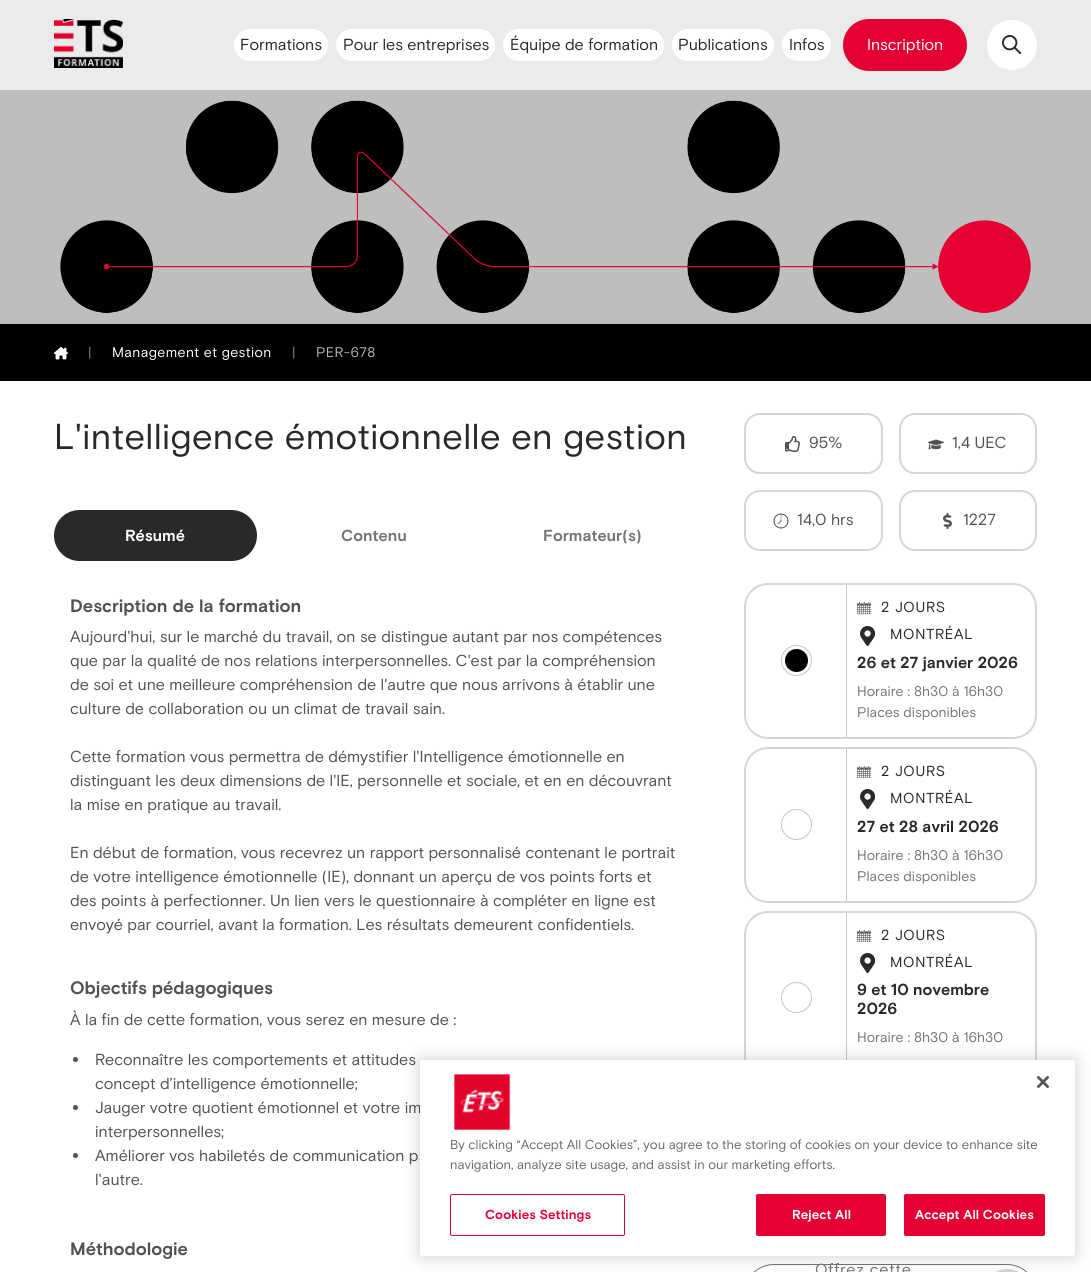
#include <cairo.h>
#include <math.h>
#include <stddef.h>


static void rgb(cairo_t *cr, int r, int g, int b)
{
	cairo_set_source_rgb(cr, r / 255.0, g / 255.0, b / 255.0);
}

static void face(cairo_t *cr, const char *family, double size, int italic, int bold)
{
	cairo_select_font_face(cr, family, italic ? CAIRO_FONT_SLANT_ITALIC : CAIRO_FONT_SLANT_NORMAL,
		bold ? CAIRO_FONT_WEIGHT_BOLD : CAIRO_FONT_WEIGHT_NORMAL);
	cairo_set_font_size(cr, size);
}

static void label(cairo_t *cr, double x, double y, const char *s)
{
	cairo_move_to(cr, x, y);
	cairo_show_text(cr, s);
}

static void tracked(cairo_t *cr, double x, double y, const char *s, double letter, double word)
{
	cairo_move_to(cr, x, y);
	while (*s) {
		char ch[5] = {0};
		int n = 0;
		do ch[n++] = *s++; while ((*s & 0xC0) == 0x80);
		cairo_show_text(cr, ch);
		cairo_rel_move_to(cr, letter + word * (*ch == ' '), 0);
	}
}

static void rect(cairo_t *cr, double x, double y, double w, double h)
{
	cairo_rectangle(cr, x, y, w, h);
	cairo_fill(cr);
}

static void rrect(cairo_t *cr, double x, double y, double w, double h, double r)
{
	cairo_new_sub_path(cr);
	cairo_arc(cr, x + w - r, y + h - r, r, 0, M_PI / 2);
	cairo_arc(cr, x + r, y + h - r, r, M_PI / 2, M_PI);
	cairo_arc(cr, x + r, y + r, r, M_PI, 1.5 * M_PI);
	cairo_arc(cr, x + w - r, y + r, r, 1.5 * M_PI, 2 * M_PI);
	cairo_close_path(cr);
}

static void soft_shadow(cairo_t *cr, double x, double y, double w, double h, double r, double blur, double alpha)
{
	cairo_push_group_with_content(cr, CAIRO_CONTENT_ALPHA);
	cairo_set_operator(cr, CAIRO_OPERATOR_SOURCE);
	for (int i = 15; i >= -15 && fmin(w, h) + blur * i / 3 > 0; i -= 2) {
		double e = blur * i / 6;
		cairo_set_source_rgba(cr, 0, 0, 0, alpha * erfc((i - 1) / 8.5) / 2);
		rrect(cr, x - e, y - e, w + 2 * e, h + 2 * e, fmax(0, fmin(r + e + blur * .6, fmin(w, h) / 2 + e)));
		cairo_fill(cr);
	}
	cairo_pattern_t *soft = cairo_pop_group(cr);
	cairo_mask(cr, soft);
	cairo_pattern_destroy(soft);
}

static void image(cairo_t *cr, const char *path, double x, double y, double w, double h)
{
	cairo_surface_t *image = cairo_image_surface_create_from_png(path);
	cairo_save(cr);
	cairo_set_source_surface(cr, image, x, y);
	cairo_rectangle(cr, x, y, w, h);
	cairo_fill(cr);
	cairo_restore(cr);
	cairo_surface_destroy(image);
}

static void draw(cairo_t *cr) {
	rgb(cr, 255, 255, 255);
	cairo_paint(cr);
	rgb(cr, 235, 235, 235);
	rect(cr, 0, 0, 1091, 90);
	image(cr, "image0.png", 54, 19, 69, 49);
	rgb(cr, 255, 255, 255);
	rrect(cr, 234, 29, 94, 32, 16);
	cairo_fill(cr);
	face(cr, "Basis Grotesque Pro", 16, 0, 0);
	rgb(cr, 41, 41, 41);
	label(cr, 240, 50, "Formations");
	rgb(cr, 255, 255, 255);
	rrect(cr, 336, 29, 159, 32, 16);
	cairo_fill(cr);
	rgb(cr, 41, 41, 41);
	label(cr, 343, 50, "Pour les entreprises");
	rgb(cr, 255, 255, 255);
	rrect(cr, 503, 29, 161, 32, 16);
	cairo_fill(cr);
	rgb(cr, 41, 41, 41);
	label(cr, 510, 50, "Équipe de formation");
	rgb(cr, 255, 255, 255);
	rrect(cr, 672, 29, 102, 32, 16);
	cairo_fill(cr);
	rgb(cr, 41, 41, 41);
	label(cr, 678, 50, "Publications");
	rgb(cr, 255, 255, 255);
	rrect(cr, 782, 29, 49, 32, 16);
	cairo_fill(cr);
	rgb(cr, 41, 41, 41);
	label(cr, 789, 50, "Infos");
	rgb(cr, 228, 0, 50);
	rrect(cr, 843, 19, 124, 52, 26);
	cairo_fill(cr);
	rgb(cr, 255, 255, 255);
	label(cr, 867, 50, "Inscription");
	cairo_new_path(cr);
	cairo_arc(cr, 1012, 45, 25, 0, 2 * M_PI);
	cairo_fill(cr);
	image(cr, "image1.png", 1002, 35, 19, 19);
	image(cr, "image2.png", 0, 90, 1091, 234);
	rgb(cr, 0, 0, 0);
	rect(cr, 0, 324, 1091, 57);
	image(cr, "image3.png", 54, 347, 14, 13);
	face(cr, "Basis Grotesque Pro", 14, 0, 0);
	rgb(cr, 128, 128, 128);
	tracked(cr, 88, 357, "|", 0.4, 0);
	rgb(cr, 255, 255, 255);
	tracked(cr, 112, 357, "Management et gestion", 0.4, 0);
	rgb(cr, 128, 128, 128);
	tracked(cr, 292, 357, "|", 0.4, 0);
	rgb(cr, 179, 179, 179);
	tracked(cr, 316, 357, "PER-678", 0.4, 0);
	face(cr, "Basis Grotesque Pro", 36, 0, 0);
	rgb(cr, 41, 41, 41);
	tracked(cr, 54, 449, "L'intelligence émotionnelle en gestion", 0.35, 0);
	rrect(cr, 54, 510, 203, 51, 25.5);
	cairo_fill(cr);
	face(cr, "Basis Grotesque Pro", 16, 0, 1);
	rgb(cr, 255, 255, 255);
	label(cr, 125, 541, "Résumé");
	rgb(cr, 117, 117, 121);
	label(cr, 341, 541, "Contenu");
	label(cr, 543, 541, "Formateur(s)");
	face(cr, "Basis Grotesque Pro", 18, 0, 1);
	rgb(cr, 82, 82, 84);
	label(cr, 70, 612, "Description de la formation");
	face(cr, "Basis Grotesque Pro", 16, 0, 0);
	label(cr, 70, 642, "Aujourd'hui, sur le marché du travail, on se distingue autant par nos compétences");
	label(cr, 70, 666, "que par la qualité de nos relations interpersonnelles. C'est par la compréhension");
	label(cr, 70, 690, "de soi et une meilleure compréhension de l'autre que nous arrivons à établir une");
	label(cr, 70, 714, "culture de collaboration ou un climat de travail sain.");
	label(cr, 70, 762, "Cette formation vous permettra de démystifier l'Intelligence émotionnelle en");
	label(cr, 70, 786, "distinguant les deux dimensions de l'IE, personnelle et sociale, et en en découvrant");
	label(cr, 70, 810, "la mise en pratique au travail.");
	label(cr, 70, 858, "En début de formation, vous recevrez un rapport personnalisé contenant le portrait");
	label(cr, 70, 882, "de votre intelligence émotionnelle (IE), donnant un aperçu de vos points forts et");
	label(cr, 70, 906, "des points à perfectionner. Un lien vers le questionnaire à compléter en ligne est");
	label(cr, 70, 930, "envoyé par courriel, avant la formation. Les résultats demeurent confidentiels.");
	face(cr, "Basis Grotesque Pro", 18, 0, 1);
	label(cr, 70, 994, "Objectifs pédagogiques");
	face(cr, "Basis Grotesque Pro", 16, 0, 0);
	label(cr, 70, 1025, "À la fin de cette formation, vous serez en mesure de :");
	cairo_new_path(cr);
	cairo_arc(cr, 75.5, 1059.5, 2.5, 0, 2 * M_PI);
	cairo_fill(cr);
	label(cr, 95, 1065, "Reconnaître les comportements et attitudes");
	label(cr, 95, 1089, "concept d’intelligence émotionnelle;");
	cairo_new_path(cr);
	cairo_arc(cr, 75.5, 1107.5, 2.5, 0, 2 * M_PI);
	cairo_fill(cr);
	label(cr, 95, 1113, "Jauger votre quotient émotionnel et votre im");
	label(cr, 95, 1137, "interpersonnelles;");
	cairo_new_path(cr);
	cairo_arc(cr, 75.5, 1155.5, 2.5, 0, 2 * M_PI);
	cairo_fill(cr);
	label(cr, 95, 1161, "Améliorer vos habiletés de communication p");
	label(cr, 95, 1185, "l'autre.");
	face(cr, "Basis Grotesque Pro", 18, 0, 1);
	label(cr, 70, 1255, "Méthodologie");
	rrect(cr, 745, 414, 137, 59, 15);
	rgb(cr, 214, 214, 214);
	cairo_stroke(cr);
	image(cr, "image4.png", 785, 436, 15, 16);
	face(cr, "Basis Grotesque Pro", 16, 0, 0);
	rgb(cr, 82, 82, 84);
	label(cr, 809, 448, "95%");
	rrect(cr, 900, 414, 136, 59, 15);
	rgb(cr, 214, 214, 214);
	cairo_stroke(cr);
	image(cr, "image5.png", 928, 439, 16, 11);
	rgb(cr, 82, 82, 84);
	label(cr, 952, 448, "1,4 UEC");
	rrect(cr, 745, 491, 137, 59, 15);
	rgb(cr, 214, 214, 214);
	cairo_stroke(cr);
	image(cr, "image6.png", 773, 513, 16, 16);
	rgb(cr, 82, 82, 84);
	label(cr, 797, 525, "14,0 hrs");
	rrect(cr, 900, 491, 136, 59, 15);
	rgb(cr, 214, 214, 214);
	cairo_stroke(cr);
	image(cr, "image7.png", 943, 513, 9, 16);
	rgb(cr, 82, 82, 84);
	label(cr, 963, 525, "1227");
	rrect(cr, 745, 584, 291, 154, 23);
	rgb(cr, 214, 214, 214);
	cairo_stroke(cr);
	cairo_arc(cr, 796.5, 660.5, 15, 0, 2 * M_PI);
	rgb(cr, 198, 198, 200);
	cairo_set_line_width(cr, 1);
	cairo_stroke(cr);
	rgb(cr, 0, 0, 0);
	cairo_arc(cr, 796.5, 660.5, 11.5, 0, 2 * M_PI);
	cairo_fill(cr);
	rgb(cr, 198, 198, 200);
	rect(cr, 846, 585, 1, 152);
	image(cr, "image8.png", 857, 602, 14, 13);
	face(cr, "Basis Grotesque Pro", 14.5, 0, 0);
	rgb(cr, 41, 41, 41);
	tracked(cr, 881, 612, "2 JOURS", 0.75, 0);
	image(cr, "image9.png", 860, 626, 15, 20);
	tracked(cr, 890, 639, "MONTRÉAL", 0.75, 0);
	face(cr, "Basis Grotesque Pro", 16, 0, 1);
	label(cr, 857, 668, "26 et 27 janvier 2026");
	face(cr, "Basis Grotesque Pro", 14, 0, 0);
	rgb(cr, 117, 117, 121);
	label(cr, 857, 696, "Horaire : 8h30 à 16h30");
	label(cr, 857, 717, "Places disponibles");
	rrect(cr, 745, 748, 291, 154, 23);
	rgb(cr, 214, 214, 214);
	cairo_set_line_width(cr, 2);
	cairo_stroke(cr);
	cairo_arc(cr, 796.5, 824.5, 15, 0, 2 * M_PI);
	rgb(cr, 198, 198, 200);
	cairo_set_line_width(cr, 1);
	cairo_stroke(cr);
	rect(cr, 846, 749, 1, 152);
	image(cr, "image10.png", 857, 766, 14, 12);
	face(cr, "Basis Grotesque Pro", 14.5, 0, 0);
	rgb(cr, 41, 41, 41);
	tracked(cr, 881, 776, "2 JOURS", 0.75, 0);
	image(cr, "image11.png", 860, 789, 15, 21);
	tracked(cr, 890, 803, "MONTRÉAL", 0.75, 0);
	face(cr, "Basis Grotesque Pro", 16, 0, 1);
	label(cr, 857, 832, "27 et 28 avril 2026");
	face(cr, "Basis Grotesque Pro", 14, 0, 0);
	rgb(cr, 117, 117, 121);
	label(cr, 857, 860, "Horaire : 8h30 à 16h30");
	label(cr, 857, 881, "Places disponibles");
	rrect(cr, 745, 912, 291, 172, 23);
	rgb(cr, 214, 214, 214);
	cairo_set_line_width(cr, 2);
	cairo_stroke(cr);
	cairo_arc(cr, 796.5, 997.5, 15, 0, 2 * M_PI);
	rgb(cr, 198, 198, 200);
	cairo_set_line_width(cr, 1);
	cairo_stroke(cr);
	rect(cr, 846, 913, 1, 147);
	image(cr, "image10.png", 857, 930, 14, 12);
	face(cr, "Basis Grotesque Pro", 14.5, 0, 0);
	rgb(cr, 41, 41, 41);
	tracked(cr, 881, 940, "2 JOURS", 0.75, 0);
	image(cr, "image9.png", 860, 953, 15, 20);
	tracked(cr, 890, 967, "MONTRÉAL", 0.75, 0);
	face(cr, "Basis Grotesque Pro", 16, 0, 1);
	label(cr, 857, 995, "9 et 10 novembre");
	label(cr, 857, 1014, "2026");
	face(cr, "Basis Grotesque Pro", 14, 0, 0);
	rgb(cr, 117, 117, 121);
	label(cr, 857, 1042, "Horaire : 8h30 à 16h30");
	rrect(cr, 744.5, 1264.5, 292, 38, 29.5);
	cairo_stroke(cr);
	face(cr, "Basis Grotesque Pro", 16, 0, 0);
	tracked(cr, 815, 1275, "Offrez cette", 0.75, 0);
	rgb(cr, 214, 214, 214);
	rrect(cr, 982, 1269, 50, 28, 25);
	cairo_fill(cr);
	rgb(cr, 0, 0, 0);
	soft_shadow(cr, 420, 1060, 655, 196, 2.5, 9, 0.2);
	rgb(cr, 255, 255, 255);
	rrect(cr, 420, 1060, 655, 196, 2.5);
	cairo_fill(cr);
	image(cr, "image12.png", 1037, 1076, 12, 12);
	image(cr, "image13.png", 454, 1074, 57, 57);
	face(cr, "Basis Grotesque Pro", 13, 0, 0);
	rgb(cr, 105, 105, 105);
	label(cr, 450, 1149, "By clicking “Accept All Cookies”, you agree to the storing of cookies on your device to enhance site");
	label(cr, 450, 1169, "navigation, analyze site usage, and assist in our marketing efforts.");
	rrect(cr, 450.5, 1194.5, 174, 41, 1.5);
	rgb(cr, 228, 0, 50);
	cairo_stroke(cr);
	face(cr, "Basis Grotesque Pro", 13, 0, 1);
	tracked(cr, 485, 1219, "Cookies Settings", 0.1, 0);
	rrect(cr, 756.5, 1194.5, 129, 41, 1.5);
	cairo_fill_preserve(cr);
	cairo_stroke(cr);
	rgb(cr, 255, 255, 255);
	tracked(cr, 792, 1219, "Reject All", 0.1, 0);
	rgb(cr, 228, 0, 50);
	rrect(cr, 904.5, 1194.5, 140, 41, 1.5);
	cairo_fill_preserve(cr);
	cairo_stroke(cr);
	rgb(cr, 255, 255, 255);
	tracked(cr, 915, 1219, "Accept All Cookies", 0.1, 0);
}

int main(void) {
	cairo_surface_t *surface = cairo_image_surface_create(CAIRO_FORMAT_RGB24, 1091, 1272);
	cairo_t *cr = cairo_create(surface);
	cairo_font_options_t *options = cairo_font_options_create();
	cairo_font_options_set_hint_metrics(options, CAIRO_HINT_METRICS_OFF);
	cairo_font_options_set_hint_style(options, CAIRO_HINT_STYLE_NONE);
	cairo_set_font_options(cr, options);
	cairo_set_miter_limit(cr, 4);
	draw(cr);
	cairo_surface_write_to_png(surface, "render.png");
	cairo_font_options_destroy(options);
	cairo_destroy(cr);
	cairo_surface_destroy(surface);
	return 0;
}
